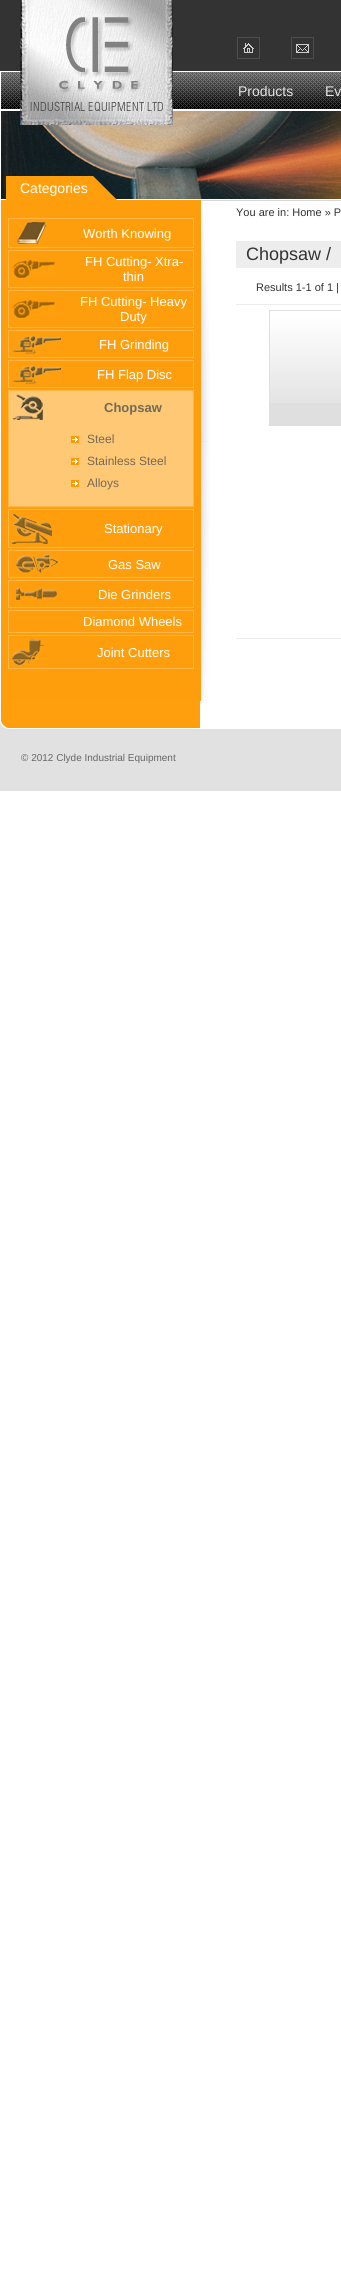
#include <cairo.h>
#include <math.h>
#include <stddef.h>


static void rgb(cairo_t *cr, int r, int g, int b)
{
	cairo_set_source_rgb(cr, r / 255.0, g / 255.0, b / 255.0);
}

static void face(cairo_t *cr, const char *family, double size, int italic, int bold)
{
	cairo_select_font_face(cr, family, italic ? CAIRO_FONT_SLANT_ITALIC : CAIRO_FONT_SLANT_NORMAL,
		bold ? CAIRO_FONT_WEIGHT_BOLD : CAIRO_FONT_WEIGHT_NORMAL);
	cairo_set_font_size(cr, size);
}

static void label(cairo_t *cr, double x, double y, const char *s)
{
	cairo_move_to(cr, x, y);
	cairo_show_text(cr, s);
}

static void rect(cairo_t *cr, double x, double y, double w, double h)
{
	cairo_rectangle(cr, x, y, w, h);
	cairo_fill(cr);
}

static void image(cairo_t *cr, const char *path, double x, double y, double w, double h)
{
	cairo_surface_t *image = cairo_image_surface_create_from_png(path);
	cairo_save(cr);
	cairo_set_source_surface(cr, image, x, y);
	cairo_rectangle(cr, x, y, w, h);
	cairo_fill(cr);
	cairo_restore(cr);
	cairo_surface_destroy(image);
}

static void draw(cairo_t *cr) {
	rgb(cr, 255, 255, 255);
	cairo_paint(cr);
	rgb(cr, 51, 51, 51);
	rect(cr, 0, 0, 341, 71);
	image(cr, "image0.png", 0, 71, 341, 38);
	image(cr, "image1.png", 20, 0, 153, 111);
	image(cr, "image2.png", 237, 37, 23, 22);
	image(cr, "image3.png", 291, 37, 23, 22);
	face(cr, "Liberation Sans", 14, 0, 0);
	rgb(cr, 229, 229, 229);
	label(cr, 238, 96, "Products");
	label(cr, 325, 96, "Ev");
	image(cr, "image4.png", 201, 200, 140, 1);
	image(cr, "image5.png", 0, 111, 341, 89);
	image(cr, "image6.png", 20, 111, 153, 14);
	rgb(cr, 255, 255, 255);
	label(cr, 20, 193, "Categories");
	rgb(cr, 255, 158, 13);
	rect(cr, 0, 200, 201, 1);
	rgb(cr, 255, 255, 255);
	rect(cr, 0, 200, 1, 1);
	rgb(cr, 255, 158, 13);
	rect(cr, 1, 201, 200, 500);
	cairo_rectangle(cr, 8.5, 218.5, 185, 29);
	rgb(cr, 255, 182, 72);
	cairo_set_line_width(cr, 1);
	cairo_stroke(cr);
	image(cr, "image7.png", 17, 222, 29, 22);
	face(cr, "Liberation Sans", 13, 0, 0);
	rgb(cr, 255, 255, 255);
	label(cr, 83, 238, "Worth Knowing");
	cairo_rectangle(cr, 8.5, 250.5, 185, 37);
	rgb(cr, 255, 182, 72);
	cairo_stroke(cr);
	image(cr, "image8.png", 12, 260, 43, 18);
	rgb(cr, 255, 255, 255);
	label(cr, 85, 266, "FH Cutting- Xtra-");
	label(cr, 123, 281, "thin");
	cairo_rectangle(cr, 8.5, 290.5, 185, 37);
	rgb(cr, 255, 182, 72);
	cairo_stroke(cr);
	image(cr, "image8.png", 12, 300, 43, 18);
	rgb(cr, 255, 255, 255);
	label(cr, 80, 306, "FH Cutting- Heavy");
	label(cr, 120, 321, "Duty");
	cairo_rectangle(cr, 8.5, 330.5, 185, 27);
	rgb(cr, 255, 182, 72);
	cairo_stroke(cr);
	image(cr, "image9.png", 13, 335, 49, 19);
	rgb(cr, 255, 255, 255);
	label(cr, 99, 349, "FH Grinding");
	cairo_rectangle(cr, 8.5, 360.5, 185, 27);
	rgb(cr, 255, 182, 72);
	cairo_stroke(cr);
	image(cr, "image9.png", 13, 365, 49, 19);
	rgb(cr, 255, 255, 255);
	label(cr, 97, 379, "FH Flap Disc");
	rgb(cr, 255, 200, 117);
	cairo_rectangle(cr, 8.5, 390.5, 185, 116);
	cairo_fill_preserve(cr);
	rgb(cr, 255, 182, 72);
	cairo_stroke(cr);
	image(cr, "image10.png", 13, 394, 30, 26);
	face(cr, "Liberation Sans", 13, 0, 1);
	rgb(cr, 114, 106, 87);
	label(cr, 104, 412, "Chopsaw");
	image(cr, "image11.png", 71, 436, 12, 9);
	face(cr, "Liberation Sans", 12, 0, 0);
	label(cr, 87, 443, "Steel");
	image(cr, "image11.png", 71, 458, 12, 9);
	label(cr, 87, 465, "Stainless Steel");
	image(cr, "image11.png", 71, 480, 12, 9);
	label(cr, 87, 487, "Alloys");
	cairo_rectangle(cr, 8.5, 509.5, 185, 38);
	rgb(cr, 255, 182, 72);
	cairo_stroke(cr);
	image(cr, "image12.png", 12, 513, 40, 31);
	face(cr, "Liberation Sans", 13, 0, 0);
	rgb(cr, 255, 255, 255);
	label(cr, 104, 533, "Stationary");
	cairo_rectangle(cr, 8.5, 550.5, 185, 27);
	rgb(cr, 255, 182, 72);
	cairo_stroke(cr);
	image(cr, "image13.png", 16, 554, 42, 20);
	rgb(cr, 255, 255, 255);
	label(cr, 108, 569, "Gas Saw");
	cairo_rectangle(cr, 8.5, 580.5, 185, 27);
	rgb(cr, 255, 182, 72);
	cairo_stroke(cr);
	image(cr, "image14.png", 16, 588, 41, 12);
	rgb(cr, 255, 255, 255);
	label(cr, 98, 599, "Die Grinders");
	cairo_rectangle(cr, 8.5, 610.5, 185, 22);
	rgb(cr, 255, 182, 72);
	cairo_stroke(cr);
	rgb(cr, 255, 255, 255);
	label(cr, 83, 626, "Diamond Wheels");
	cairo_rectangle(cr, 8.5, 635.5, 185, 33);
	rgb(cr, 255, 182, 72);
	cairo_stroke(cr);
	image(cr, "image15.png", 12, 639, 32, 26);
	rgb(cr, 255, 255, 255);
	label(cr, 97, 657, "Joint Cutters");
	image(cr, "image16.png", 201, 212, 9, 489);
	face(cr, "Liberation Sans", 11, 0, 0);
	rgb(cr, 51, 51, 51);
	label(cr, 236, 216, "You are in: Home » P");
	rgb(cr, 237, 237, 237);
	rect(cr, 236, 241, 105, 27);
	face(cr, "Liberation Sans", 18, 0, 0);
	rgb(cr, 51, 51, 51);
	label(cr, 246, 260, "Chopsaw /");
	rgb(cr, 237, 237, 237);
	rect(cr, 236, 304, 105, 1);
	face(cr, "Liberation Sans", 11, 0, 0);
	rgb(cr, 51, 51, 51);
	label(cr, 256, 291, "Results 1-1 of 1 |");
	rgb(cr, 223, 223, 223);
	rect(cr, 269, 310, 72, 116);
	image(cr, "image17.png", 270, 311, 71, 92);
	rgb(cr, 237, 237, 237);
	rect(cr, 236, 638, 105, 1);
	image(cr, "image18.png", 0, 732, 341, 59);
	image(cr, "image19.png", 0, 701, 341, 31);
	face(cr, "Liberation Sans", 10, 0, 0);
	rgb(cr, 102, 102, 102);
	label(cr, 21, 761, "© 2012 Clyde Industrial Equipment");
}

int main(void) {
	cairo_surface_t *surface = cairo_image_surface_create(CAIRO_FORMAT_RGB24, 341, 2274);
	cairo_t *cr = cairo_create(surface);
	cairo_font_options_t *options = cairo_font_options_create();
	cairo_font_options_set_hint_metrics(options, CAIRO_HINT_METRICS_OFF);
	cairo_font_options_set_hint_style(options, CAIRO_HINT_STYLE_NONE);
	cairo_set_font_options(cr, options);
	cairo_set_miter_limit(cr, 4);
	draw(cr);
	cairo_surface_write_to_png(surface, "render.png");
	cairo_font_options_destroy(options);
	cairo_destroy(cr);
	cairo_surface_destroy(surface);
	return 0;
}
